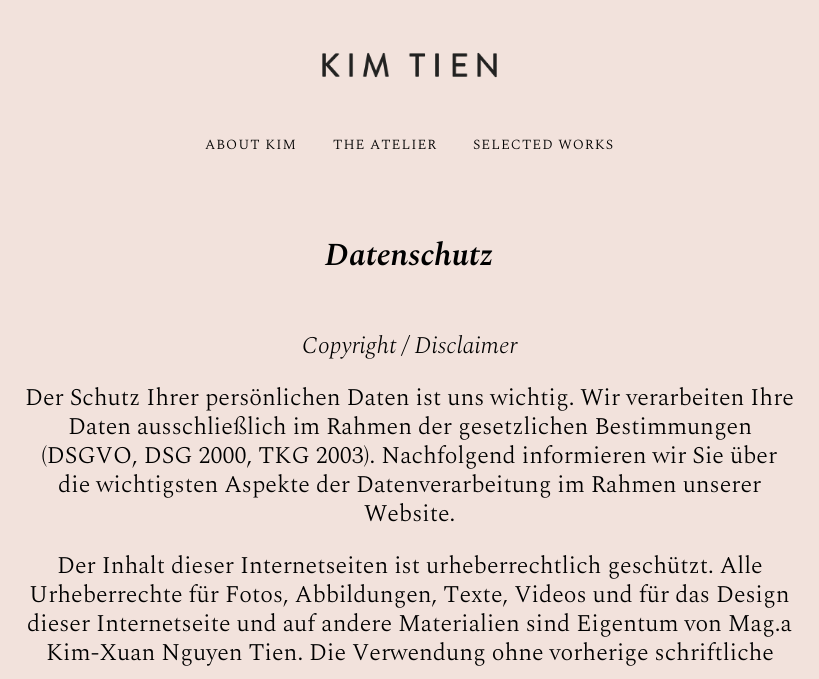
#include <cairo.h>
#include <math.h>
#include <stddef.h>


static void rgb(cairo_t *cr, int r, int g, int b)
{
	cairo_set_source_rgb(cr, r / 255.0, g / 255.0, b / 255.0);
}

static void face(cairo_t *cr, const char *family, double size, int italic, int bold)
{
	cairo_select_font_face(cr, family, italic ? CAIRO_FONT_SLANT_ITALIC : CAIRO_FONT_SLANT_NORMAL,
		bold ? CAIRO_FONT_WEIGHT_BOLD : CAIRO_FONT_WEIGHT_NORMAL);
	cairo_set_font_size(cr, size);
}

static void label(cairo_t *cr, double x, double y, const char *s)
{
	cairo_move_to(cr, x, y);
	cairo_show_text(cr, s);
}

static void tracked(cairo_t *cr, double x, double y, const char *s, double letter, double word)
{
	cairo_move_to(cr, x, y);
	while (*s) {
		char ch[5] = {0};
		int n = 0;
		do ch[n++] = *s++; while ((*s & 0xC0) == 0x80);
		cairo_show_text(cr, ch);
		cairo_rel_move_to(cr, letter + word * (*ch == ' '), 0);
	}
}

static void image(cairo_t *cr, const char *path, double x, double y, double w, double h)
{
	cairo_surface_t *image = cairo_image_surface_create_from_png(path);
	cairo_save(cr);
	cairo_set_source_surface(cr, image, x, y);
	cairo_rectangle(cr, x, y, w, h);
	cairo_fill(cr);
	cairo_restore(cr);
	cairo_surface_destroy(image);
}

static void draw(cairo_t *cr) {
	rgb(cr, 242, 226, 220);
	cairo_paint(cr);
	image(cr, "image0.png", 322, 52, 175, 26);
	face(cr, "Spectral Light", 14, 0, 0);
	rgb(cr, 0, 0, 0);
	tracked(cr, 205, 149, "ABOUT KIM", 1, 0);
	tracked(cr, 333, 149, "THE ATELIER", 1, 0);
	tracked(cr, 473, 149, "SELECTED WORKS", 1, 0);
	face(cr, "Spectral SemiBold", 32, 1, 0);
	label(cr, 325, 265, "Datenschutz");
	face(cr, "Spectral Light", 24, 1, 0);
	label(cr, 302, 353, "Copyright / Disclaimer");
	face(cr, "Spectral Light", 24, 0, 0);
	label(cr, 25, 405, "Der Schutz Ihrer persönlichen Daten ist uns wichtig. Wir verarbeiten Ihre");
	label(cr, 68, 434, "Daten ausschließlich im Rahmen der gesetzlichen Bestimmungen");
	label(cr, 41, 463, "(DSGVO, DSG 2000, TKG 2003). Nachfolgend informieren wir Sie über");
	label(cr, 58, 492, "die wichtigsten Aspekte der Datenverarbeitung im Rahmen unserer");
	label(cr, 364, 521, "Website.");
	label(cr, 57, 573, "Der Inhalt dieser Internetseiten ist urheberrechtlich geschützt. Alle");
	label(cr, 29, 602, "Urheberrechte für Fotos, Abbildungen, Texte, Videos und für das Design");
	label(cr, 27, 631, "dieser Internetseite und auf andere Materialien sind Eigentum von Mag.a");
	label(cr, 46, 660, "Kim-Xuan Nguyen Tien. Die Verwendung ohne vorherige schriftliche");
}

int main(void) {
	cairo_surface_t *surface = cairo_image_surface_create(CAIRO_FORMAT_RGB24, 819, 679);
	cairo_t *cr = cairo_create(surface);
	cairo_font_options_t *options = cairo_font_options_create();
	cairo_font_options_set_hint_metrics(options, CAIRO_HINT_METRICS_OFF);
	cairo_font_options_set_hint_style(options, CAIRO_HINT_STYLE_NONE);
	cairo_set_font_options(cr, options);
	cairo_set_miter_limit(cr, 4);
	draw(cr);
	cairo_surface_write_to_png(surface, "render.png");
	cairo_font_options_destroy(options);
	cairo_destroy(cr);
	cairo_surface_destroy(surface);
	return 0;
}
